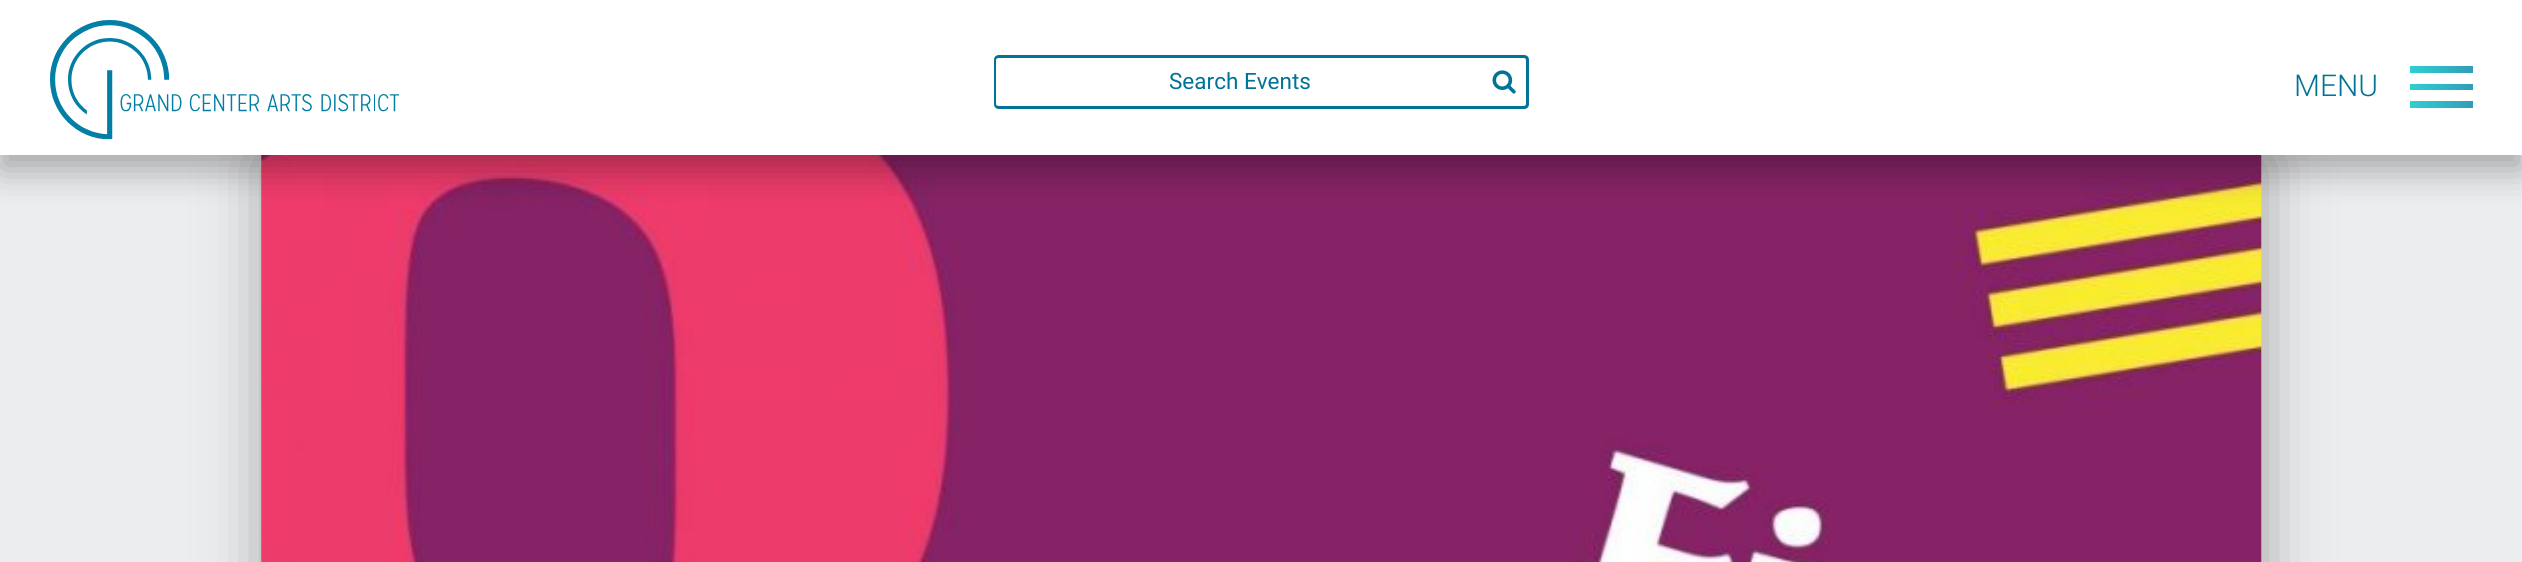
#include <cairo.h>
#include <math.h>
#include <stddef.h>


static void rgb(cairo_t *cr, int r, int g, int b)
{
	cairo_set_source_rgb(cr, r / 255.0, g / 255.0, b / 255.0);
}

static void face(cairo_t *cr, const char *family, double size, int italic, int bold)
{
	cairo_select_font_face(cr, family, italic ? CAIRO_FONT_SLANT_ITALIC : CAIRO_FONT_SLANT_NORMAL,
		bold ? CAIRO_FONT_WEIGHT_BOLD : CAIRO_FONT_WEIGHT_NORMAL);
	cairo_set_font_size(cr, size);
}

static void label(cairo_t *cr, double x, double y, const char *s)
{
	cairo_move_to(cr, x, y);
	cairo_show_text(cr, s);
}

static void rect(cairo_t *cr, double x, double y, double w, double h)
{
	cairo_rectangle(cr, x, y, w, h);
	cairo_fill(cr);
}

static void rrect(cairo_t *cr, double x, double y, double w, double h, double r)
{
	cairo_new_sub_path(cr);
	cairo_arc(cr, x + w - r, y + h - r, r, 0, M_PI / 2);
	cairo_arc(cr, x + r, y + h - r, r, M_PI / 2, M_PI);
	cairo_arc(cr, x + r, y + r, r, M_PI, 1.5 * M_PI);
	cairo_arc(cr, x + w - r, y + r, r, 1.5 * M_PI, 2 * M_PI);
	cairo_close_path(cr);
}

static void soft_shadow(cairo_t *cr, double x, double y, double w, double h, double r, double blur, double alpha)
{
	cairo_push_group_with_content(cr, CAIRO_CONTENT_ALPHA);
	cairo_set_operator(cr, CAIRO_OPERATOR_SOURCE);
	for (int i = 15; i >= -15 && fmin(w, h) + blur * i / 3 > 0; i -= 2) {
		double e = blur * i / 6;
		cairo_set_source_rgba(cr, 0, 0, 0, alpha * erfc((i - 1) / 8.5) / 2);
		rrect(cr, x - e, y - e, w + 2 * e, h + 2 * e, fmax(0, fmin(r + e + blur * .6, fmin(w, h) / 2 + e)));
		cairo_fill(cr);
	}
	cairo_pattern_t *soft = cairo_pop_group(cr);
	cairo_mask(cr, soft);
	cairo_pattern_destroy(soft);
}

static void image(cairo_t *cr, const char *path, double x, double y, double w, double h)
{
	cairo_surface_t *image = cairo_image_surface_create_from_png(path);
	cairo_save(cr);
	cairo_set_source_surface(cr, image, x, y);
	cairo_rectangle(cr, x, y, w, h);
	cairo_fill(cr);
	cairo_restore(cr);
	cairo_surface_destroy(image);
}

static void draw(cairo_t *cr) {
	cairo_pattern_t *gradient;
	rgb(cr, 236, 237, 239);
	cairo_paint(cr);
	rgb(cr, 164, 164, 164);
	soft_shadow(cr, 264, 158, 2000, 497, 0, 31, 1);
	image(cr, "image0.png", 261, 155, 2001, 407);
	rgb(cr, 0, 0, 0);
	soft_shadow(cr, 0, 15, 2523, 155, 0, 17.5, 0.3);
	rgb(cr, 255, 255, 255);
	rect(cr, 0, 0, 2522, 155);
	image(cr, "image1.png", 50, 20, 349, 120);
	rgb(cr, 0, 115, 150);
	cairo_set_fill_rule(cr, CAIRO_FILL_RULE_EVEN_ODD);
	cairo_new_path(cr);
	cairo_move_to(cr, 999, 55);
	cairo_line_to(cr, 1482, 55);
	cairo_line_to(cr, 1482, 109);
	cairo_line_to(cr, 999, 109);
	cairo_curve_to(cr, 996, 109, 994, 107, 994, 104);
	cairo_line_to(cr, 994, 60);
	cairo_curve_to(cr, 994, 57, 996, 55, 999, 55);
	cairo_close_path(cr);
	cairo_move_to(cr, 999, 58);
	cairo_line_to(cr, 1482, 58);
	cairo_line_to(cr, 1482, 106);
	cairo_line_to(cr, 999, 106);
	cairo_curve_to(cr, 997, 106, 996, 105, 996, 104);
	cairo_line_to(cr, 996, 60);
	cairo_curve_to(cr, 996, 59, 997, 58, 999, 58);
	cairo_close_path(cr);
	cairo_fill(cr);
	face(cr, "Roboto", 22.5, 0, 0);
	label(cr, 1169, 89, "Search Events");
	cairo_new_path(cr);
	cairo_move_to(cr, 1482, 55);
	cairo_line_to(cr, 1524, 55);
	cairo_curve_to(cr, 1527, 55, 1529, 57, 1529, 60);
	cairo_line_to(cr, 1529, 104);
	cairo_curve_to(cr, 1529, 107, 1527, 109, 1524, 109);
	cairo_line_to(cr, 1482, 109);
	cairo_close_path(cr);
	cairo_move_to(cr, 1482, 58);
	cairo_line_to(cr, 1524, 58);
	cairo_curve_to(cr, 1525, 58, 1526, 59, 1526, 60);
	cairo_line_to(cr, 1526, 104);
	cairo_curve_to(cr, 1526, 105, 1525, 106, 1524, 106);
	cairo_line_to(cr, 1482, 106);
	cairo_close_path(cr);
	cairo_fill(cr);
	image(cr, "image2.png", 1492, 70, 24, 24);
	gradient = cairo_pattern_create_linear(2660, 79, 2410, 79);
	cairo_pattern_add_color_stop_rgba(gradient, 0, 0.2, 0.031, 0.463, 1);
	cairo_pattern_add_color_stop_rgba(gradient, 1, 0.188, 0.812, 0.816, 1);
	cairo_set_source(cr, gradient);
	cairo_pattern_destroy(gradient);
	rect(cr, 2410, 66, 63, 7);
	face(cr, "Roboto Light", 30, 0, 0);
	rgb(cr, 0, 115, 150);
	label(cr, 2294, 96, "MENU");
	gradient = cairo_pattern_create_linear(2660, 96, 2410, 96);
	cairo_pattern_add_color_stop_rgba(gradient, 0, 0.2, 0.031, 0.463, 1);
	cairo_pattern_add_color_stop_rgba(gradient, 1, 0.188, 0.812, 0.816, 1);
	cairo_set_source(cr, gradient);
	cairo_pattern_destroy(gradient);
	rect(cr, 2410, 84, 63, 6);
	gradient = cairo_pattern_create_linear(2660, 114, 2410, 114);
	cairo_pattern_add_color_stop_rgba(gradient, 0, 0.2, 0.031, 0.463, 1);
	cairo_pattern_add_color_stop_rgba(gradient, 1, 0.188, 0.812, 0.816, 1);
	cairo_set_source(cr, gradient);
	cairo_pattern_destroy(gradient);
	rect(cr, 2410, 101, 63, 7);
}

int main(void) {
	cairo_surface_t *surface = cairo_image_surface_create(CAIRO_FORMAT_RGB24, 2522, 562);
	cairo_t *cr = cairo_create(surface);
	cairo_font_options_t *options = cairo_font_options_create();
	cairo_font_options_set_hint_metrics(options, CAIRO_HINT_METRICS_OFF);
	cairo_font_options_set_hint_style(options, CAIRO_HINT_STYLE_NONE);
	cairo_set_font_options(cr, options);
	cairo_set_miter_limit(cr, 4);
	draw(cr);
	cairo_surface_write_to_png(surface, "render.png");
	cairo_font_options_destroy(options);
	cairo_destroy(cr);
	cairo_surface_destroy(surface);
	return 0;
}
